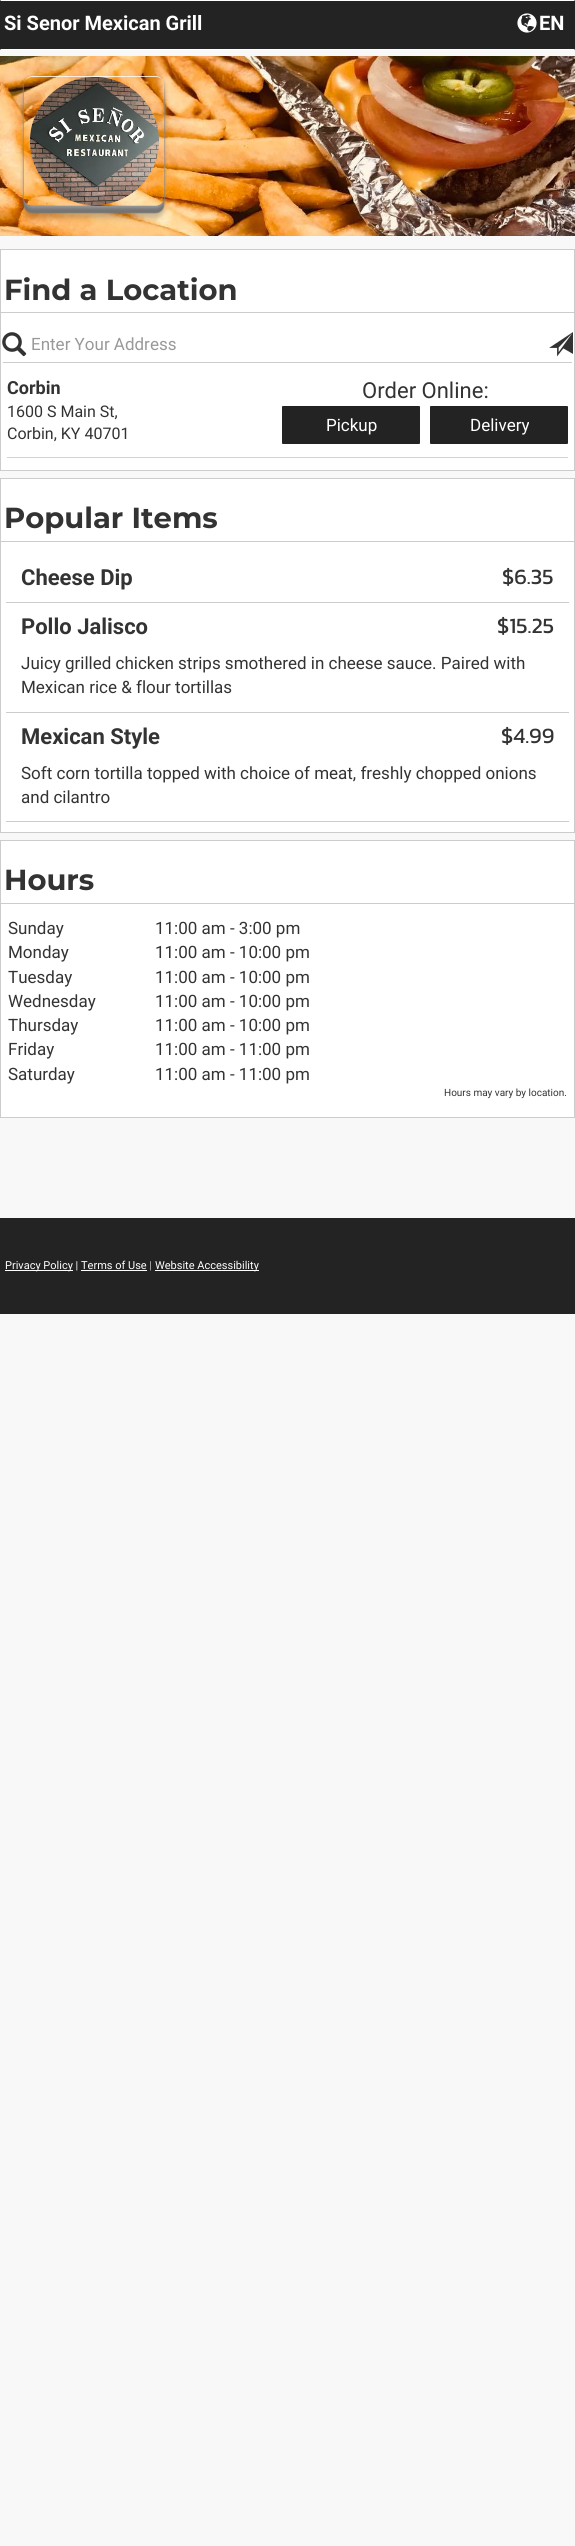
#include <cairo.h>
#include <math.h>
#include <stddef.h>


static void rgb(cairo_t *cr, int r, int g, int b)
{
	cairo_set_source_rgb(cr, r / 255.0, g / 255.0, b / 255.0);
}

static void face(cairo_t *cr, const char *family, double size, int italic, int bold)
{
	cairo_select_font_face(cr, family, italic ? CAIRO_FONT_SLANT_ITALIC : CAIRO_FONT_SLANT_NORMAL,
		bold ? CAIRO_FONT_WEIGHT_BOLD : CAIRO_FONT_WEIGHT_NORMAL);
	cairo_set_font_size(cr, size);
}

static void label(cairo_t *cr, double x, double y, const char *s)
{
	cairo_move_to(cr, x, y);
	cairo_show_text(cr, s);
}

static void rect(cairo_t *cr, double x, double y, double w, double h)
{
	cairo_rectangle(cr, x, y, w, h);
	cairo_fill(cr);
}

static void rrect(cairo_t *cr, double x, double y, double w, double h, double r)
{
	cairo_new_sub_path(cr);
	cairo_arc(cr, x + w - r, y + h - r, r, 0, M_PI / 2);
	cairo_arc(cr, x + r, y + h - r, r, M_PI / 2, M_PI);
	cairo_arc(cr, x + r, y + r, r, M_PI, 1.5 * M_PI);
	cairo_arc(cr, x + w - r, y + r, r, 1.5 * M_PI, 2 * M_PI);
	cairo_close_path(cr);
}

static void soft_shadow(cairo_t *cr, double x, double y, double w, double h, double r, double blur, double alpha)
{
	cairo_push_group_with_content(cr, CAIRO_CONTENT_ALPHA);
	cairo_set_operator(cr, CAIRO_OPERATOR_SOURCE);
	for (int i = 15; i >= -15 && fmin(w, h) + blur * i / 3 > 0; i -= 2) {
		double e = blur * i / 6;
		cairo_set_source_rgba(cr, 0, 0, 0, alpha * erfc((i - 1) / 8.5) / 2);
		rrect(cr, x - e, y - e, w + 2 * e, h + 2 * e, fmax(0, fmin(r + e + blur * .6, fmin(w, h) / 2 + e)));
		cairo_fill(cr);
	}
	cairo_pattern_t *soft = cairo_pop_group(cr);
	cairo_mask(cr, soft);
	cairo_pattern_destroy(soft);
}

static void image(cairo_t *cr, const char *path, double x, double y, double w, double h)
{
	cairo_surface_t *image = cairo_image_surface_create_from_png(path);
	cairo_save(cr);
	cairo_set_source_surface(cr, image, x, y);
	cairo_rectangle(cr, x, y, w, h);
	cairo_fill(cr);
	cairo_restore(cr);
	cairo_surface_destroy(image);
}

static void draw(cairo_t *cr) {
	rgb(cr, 248, 248, 248);
	cairo_paint(cr);
	rgb(cr, 35, 35, 35);
	rect(cr, 0, 0, 575, 50);
	rgb(cr, 255, 255, 255);
	cairo_new_path(cr);
	cairo_move_to(cr, 0, 0);
	cairo_line_to(cr, 575, 0);
	cairo_line_to(cr, 574, 1);
	cairo_line_to(cr, 1, 1);
	cairo_close_path(cr);
	cairo_fill(cr);
	cairo_new_path(cr);
	cairo_move_to(cr, 575, 50);
	cairo_line_to(cr, 0, 50);
	cairo_line_to(cr, 1, 49);
	cairo_line_to(cr, 574, 49);
	cairo_close_path(cr);
	cairo_fill(cr);
	face(cr, "Roboto", 20, 0, 1);
	label(cr, 4, 30, "Si Senor Mexican Grill");
	image(cr, "image0.png", 517, 13, 20, 20);
	label(cr, 539, 30, "EN");
	image(cr, "image1.png", 0, 56, 575, 180);
	cairo_save(cr);
	cairo_set_fill_rule(cr, CAIRO_FILL_RULE_EVEN_ODD);
	cairo_new_path(cr);
	cairo_move_to(cr, 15, 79);
	cairo_line_to(cr, 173, 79);
	cairo_line_to(cr, 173, 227);
	cairo_line_to(cr, 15, 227);
	cairo_close_path(cr);
	cairo_move_to(cr, 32, 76);
	cairo_line_to(cr, 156, 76);
	cairo_curve_to(cr, 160.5, 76, 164, 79.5, 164, 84);
	cairo_line_to(cr, 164, 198);
	cairo_curve_to(cr, 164, 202.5, 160.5, 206, 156, 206);
	cairo_line_to(cr, 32, 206);
	cairo_curve_to(cr, 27.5, 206, 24, 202.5, 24, 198);
	cairo_line_to(cr, 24, 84);
	cairo_curve_to(cr, 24, 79.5, 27.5, 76, 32, 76);
	cairo_close_path(cr);
	cairo_clip(cr);
	rgb(cr, 0, 0, 0);
	soft_shadow(cr, 24, 88, 140, 130, 8, 2.5, 0.2);
	cairo_restore(cr);
	cairo_save(cr);
	cairo_set_fill_rule(cr, CAIRO_FILL_RULE_EVEN_ODD);
	cairo_new_path(cr);
	cairo_move_to(cr, 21, 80);
	cairo_line_to(cr, 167, 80);
	cairo_line_to(cr, 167, 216);
	cairo_line_to(cr, 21, 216);
	cairo_close_path(cr);
	cairo_move_to(cr, 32, 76);
	cairo_line_to(cr, 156, 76);
	cairo_curve_to(cr, 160.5, 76, 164, 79.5, 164, 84);
	cairo_line_to(cr, 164, 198);
	cairo_curve_to(cr, 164, 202.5, 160.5, 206, 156, 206);
	cairo_line_to(cr, 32, 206);
	cairo_curve_to(cr, 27.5, 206, 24, 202.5, 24, 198);
	cairo_line_to(cr, 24, 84);
	cairo_curve_to(cr, 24, 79.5, 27.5, 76, 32, 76);
	cairo_close_path(cr);
	cairo_clip(cr);
	rgb(cr, 115, 115, 115);
	soft_shadow(cr, 24, 83, 140, 130, 8, 0.5, 1);
	cairo_restore(cr);
	cairo_save(cr);
	cairo_set_fill_rule(cr, CAIRO_FILL_RULE_EVEN_ODD);
	cairo_new_path(cr);
	cairo_move_to(cr, 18, 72);
	cairo_line_to(cr, 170, 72);
	cairo_line_to(cr, 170, 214);
	cairo_line_to(cr, 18, 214);
	cairo_close_path(cr);
	cairo_move_to(cr, 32, 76);
	cairo_line_to(cr, 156, 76);
	cairo_curve_to(cr, 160.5, 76, 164, 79.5, 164, 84);
	cairo_line_to(cr, 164, 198);
	cairo_curve_to(cr, 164, 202.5, 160.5, 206, 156, 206);
	cairo_line_to(cr, 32, 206);
	cairo_curve_to(cr, 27.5, 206, 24, 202.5, 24, 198);
	cairo_line_to(cr, 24, 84);
	cairo_curve_to(cr, 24, 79.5, 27.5, 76, 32, 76);
	cairo_close_path(cr);
	cairo_clip(cr);
	rgb(cr, 153, 153, 153);
	soft_shadow(cr, 24, 78, 140, 130, 8, 1.5, 1);
	cairo_restore(cr);
	image(cr, "image2.png", 30, 77, 129, 128);
	cairo_set_source_rgba(cr, 1, 1, 1, 0.8);
	cairo_new_path(cr);
	cairo_move_to(cr, 32, 76);
	cairo_curve_to(cr, 28, 76, 24, 80, 24, 84);
	cairo_curve_to(cr, 24, 80, 28, 77, 32, 77);
	cairo_line_to(cr, 156, 77);
	cairo_curve_to(cr, 160, 77, 164, 80, 164, 84);
	cairo_curve_to(cr, 164, 80, 160, 76, 156, 76);
	cairo_close_path(cr);
	cairo_fill(cr);
	cairo_set_source_rgba(cr, 0, 0, 0, 0.1);
	cairo_new_path(cr);
	cairo_move_to(cr, 156, 206);
	cairo_curve_to(cr, 160, 206, 164, 202, 164, 198);
	cairo_curve_to(cr, 164, 202, 160, 205, 156, 205);
	cairo_line_to(cr, 32, 205);
	cairo_curve_to(cr, 28, 205, 24, 202, 24, 198);
	cairo_curve_to(cr, 24, 202, 28, 206, 32, 206);
	cairo_close_path(cr);
	cairo_fill(cr);
	rgb(cr, 255, 255, 255);
	cairo_rectangle(cr, 0.5, 249.5, 574, 221);
	cairo_fill_preserve(cr);
	rgb(cr, 204, 204, 204);
	cairo_set_line_width(cr, 1);
	cairo_stroke(cr);
	rect(cr, 1, 312, 573, 1);
	face(cr, "Montserrat", 29, 0, 1);
	rgb(cr, 51, 51, 51);
	label(cr, 4, 300, "Find a Location");
	image(cr, "image3.png", 2, 332, 25, 25);
	rgb(cr, 204, 204, 204);
	rect(cr, 3, 362, 569, 1);
	face(cr, "Roboto", 17, 0, 0);
	rgb(cr, 153, 153, 153);
	label(cr, 31, 350, "Enter Your Address");
	image(cr, "image4.png", 549, 332, 24, 25);
	rgb(cr, 211, 211, 211);
	rect(cr, 7, 457, 561, 1);
	face(cr, "Roboto", 18, 0, 1);
	rgb(cr, 51, 51, 51);
	label(cr, 7, 394, "Corbin");
	face(cr, "Roboto", 16, 0, 0);
	label(cr, 7, 417, "1600 S Main St,");
	label(cr, 7, 439, "Corbin, KY 40701");
	face(cr, "Roboto", 22, 0, 0);
	label(cr, 362, 398, "Order Online:");
	rgb(cr, 35, 35, 35);
	rrect(cr, 282, 406, 138, 38, 1);
	cairo_fill(cr);
	cairo_set_source_rgba(cr, 0, 0, 0, 0.07);
	cairo_new_path(cr);
	cairo_move_to(cr, 283, 407);
	cairo_line_to(cr, 419, 407);
	cairo_curve_to(cr, 420, 407, 420, 407, 420, 408);
	cairo_curve_to(cr, 420, 407, 420, 406, 419, 406);
	cairo_line_to(cr, 283, 406);
	cairo_curve_to(cr, 282, 406, 282, 407, 282, 408);
	cairo_curve_to(cr, 282, 407, 282, 407, 283, 407);
	cairo_close_path(cr);
	cairo_fill(cr);
	face(cr, "Roboto", 17, 0, 0);
	rgb(cr, 255, 255, 255);
	label(cr, 326, 431, "Pickup");
	rgb(cr, 35, 35, 35);
	rrect(cr, 430, 406, 138, 38, 1);
	cairo_fill(cr);
	cairo_set_source_rgba(cr, 0, 0, 0, 0.07);
	cairo_new_path(cr);
	cairo_move_to(cr, 431, 407);
	cairo_line_to(cr, 567, 407);
	cairo_curve_to(cr, 568, 407, 568, 407, 568, 408);
	cairo_curve_to(cr, 568, 407, 568, 406, 567, 406);
	cairo_line_to(cr, 431, 406);
	cairo_curve_to(cr, 430, 406, 430, 407, 430, 408);
	cairo_curve_to(cr, 430, 407, 430, 407, 431, 407);
	cairo_close_path(cr);
	cairo_fill(cr);
	rgb(cr, 255, 255, 255);
	label(cr, 470, 431, "Delivery");
	cairo_rectangle(cr, 0.5, 478.5, 574, 354);
	cairo_fill_preserve(cr);
	rgb(cr, 204, 204, 204);
	cairo_stroke(cr);
	rect(cr, 1, 541, 573, 1);
	face(cr, "Montserrat", 29, 0, 1);
	rgb(cr, 51, 51, 51);
	label(cr, 4, 528, "Popular Items");
	rgb(cr, 204, 204, 204);
	rect(cr, 6, 602, 563, 1);
	face(cr, "Roboto", 22, 0, 1);
	rgb(cr, 51, 51, 51);
	label(cr, 21, 585, "Cheese Dip");
	face(cr, "Kanit", 22, 0, 0);
	label(cr, 502, 584, "$6.35");
	rgb(cr, 204, 204, 204);
	rect(cr, 6, 712, 563, 1);
	face(cr, "Roboto", 22, 0, 1);
	rgb(cr, 51, 51, 51);
	label(cr, 21, 634, "Pollo Jalisco");
	face(cr, "Kanit", 22, 0, 0);
	label(cr, 497, 633, "$15.25");
	face(cr, "Roboto", 17, 0, 0);
	label(cr, 21, 669, "Juicy grilled chicken strips smothered in cheese sauce. Paired with");
	label(cr, 21, 693, "Mexican rice & flour tortillas");
	rgb(cr, 204, 204, 204);
	rect(cr, 6, 821, 563, 1);
	face(cr, "Roboto", 22, 0, 1);
	rgb(cr, 51, 51, 51);
	label(cr, 21, 744, "Mexican Style");
	face(cr, "Kanit", 22, 0, 0);
	label(cr, 501, 743, "$4.99");
	face(cr, "Roboto", 17, 0, 0);
	label(cr, 21, 779, "Soft corn tortilla topped with choice of meat, freshly chopped onions");
	label(cr, 21, 803, "and cilantro");
	rgb(cr, 255, 255, 255);
	cairo_rectangle(cr, 0.5, 840.5, 574, 277);
	cairo_fill_preserve(cr);
	rgb(cr, 204, 204, 204);
	cairo_stroke(cr);
	rect(cr, 1, 903, 573, 1);
	face(cr, "Montserrat", 29, 0, 1);
	rgb(cr, 51, 51, 51);
	label(cr, 4, 890, "Hours");
	face(cr, "Roboto", 17, 0, 0);
	label(cr, 8, 934, "Sunday");
	label(cr, 155, 934, "11:00 am - 3:00 pm");
	label(cr, 8, 958, "Monday");
	label(cr, 155, 958, "11:00 am - 10:00 pm");
	label(cr, 8, 983, "Tuesday");
	label(cr, 155, 983, "11:00 am - 10:00 pm");
	label(cr, 8, 1007, "Wednesday");
	label(cr, 155, 1007, "11:00 am - 10:00 pm");
	label(cr, 8, 1031, "Thursday");
	label(cr, 155, 1031, "11:00 am - 10:00 pm");
	label(cr, 8, 1055, "Friday");
	label(cr, 155, 1055, "11:00 am - 11:00 pm");
	label(cr, 8, 1080, "Saturday");
	label(cr, 155, 1080, "11:00 am - 11:00 pm");
	face(cr, "Roboto", 10, 0, 0);
	label(cr, 444, 1096, "Hours may vary by location.");
	rgb(cr, 35, 35, 35);
	rect(cr, 0, 1218, 575, 96);
	rgb(cr, 255, 255, 255);
	rect(cr, 5, 1270, 68, 1);
	face(cr, "Roboto", 11, 0, 0);
	label(cr, 5, 1269, "Privacy Policy | Terms of Use |");
	rect(cr, 155, 1270, 104, 1);
	label(cr, 155, 1269, "Website Accessibility");
	rect(cr, 81, 1270, 66, 1);
}

int main(void) {
	cairo_surface_t *surface = cairo_image_surface_create(CAIRO_FORMAT_RGB24, 575, 2546);
	cairo_t *cr = cairo_create(surface);
	cairo_font_options_t *options = cairo_font_options_create();
	cairo_font_options_set_hint_metrics(options, CAIRO_HINT_METRICS_OFF);
	cairo_font_options_set_hint_style(options, CAIRO_HINT_STYLE_NONE);
	cairo_set_font_options(cr, options);
	cairo_set_miter_limit(cr, 4);
	draw(cr);
	cairo_surface_write_to_png(surface, "render.png");
	cairo_font_options_destroy(options);
	cairo_destroy(cr);
	cairo_surface_destroy(surface);
	return 0;
}
